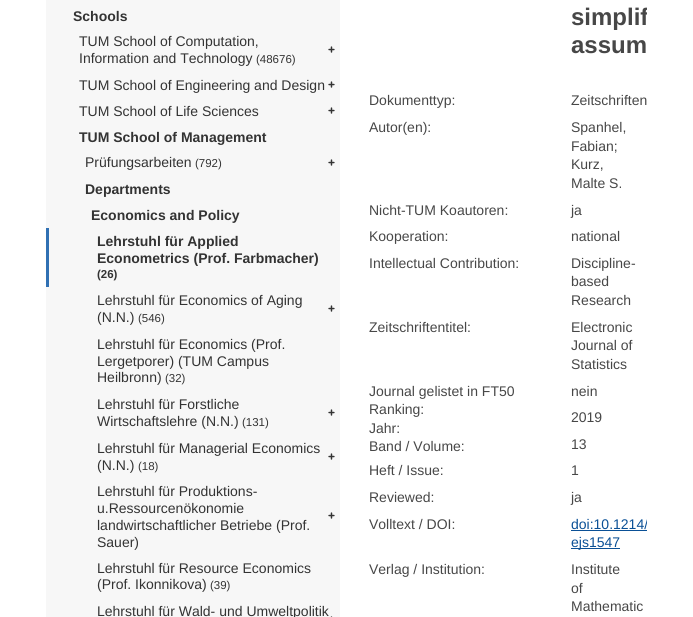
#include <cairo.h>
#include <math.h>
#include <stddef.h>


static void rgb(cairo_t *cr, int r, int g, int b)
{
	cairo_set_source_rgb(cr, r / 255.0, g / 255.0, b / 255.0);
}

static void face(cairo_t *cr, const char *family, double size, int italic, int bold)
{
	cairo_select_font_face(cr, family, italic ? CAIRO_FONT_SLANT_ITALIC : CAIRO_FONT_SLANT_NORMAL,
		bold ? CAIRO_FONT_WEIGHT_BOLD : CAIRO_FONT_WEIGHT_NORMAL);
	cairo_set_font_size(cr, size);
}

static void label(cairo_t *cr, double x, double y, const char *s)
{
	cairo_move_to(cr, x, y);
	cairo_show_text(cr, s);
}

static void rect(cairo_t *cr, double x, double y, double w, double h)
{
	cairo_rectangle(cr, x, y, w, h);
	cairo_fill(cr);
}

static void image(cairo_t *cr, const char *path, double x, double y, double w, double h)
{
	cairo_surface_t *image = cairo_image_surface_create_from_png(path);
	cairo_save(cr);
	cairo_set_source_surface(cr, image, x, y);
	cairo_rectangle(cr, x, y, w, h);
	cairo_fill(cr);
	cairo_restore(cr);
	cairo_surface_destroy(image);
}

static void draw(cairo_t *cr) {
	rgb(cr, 255, 255, 255);
	cairo_paint(cr);
	rgb(cr, 247, 247, 247);
	rect(cr, 46, 0, 294, 228);
	face(cr, "Liberation Sans", 14, 0, 1);
	rgb(cr, 51, 51, 51);
	label(cr, 73, 21, "Schools");
	face(cr, "Liberation Sans", 14, 0, 0);
	label(cr, 79, 46, "TUM School of Computation,");
	image(cr, "image0.png", 328, 46, 7, 7);
	label(cr, 79, 63, "Information and Technology");
	face(cr, "Liberation Sans", 11.5, 0, 0);
	label(cr, 256, 63, "(48676)");
	face(cr, "Liberation Sans", 14, 0, 0);
	label(cr, 79, 90, "TUM School of Engineering and Design");
	image(cr, "image0.png", 328, 81, 7, 7);
	label(cr, 79, 116, "TUM School of Life Sciences");
	image(cr, "image0.png", 328, 107, 7, 7);
	face(cr, "Liberation Sans", 14, 0, 1);
	label(cr, 79, 142, "TUM School of Management");
	face(cr, "Liberation Sans", 14, 0, 0);
	label(cr, 85, 167, "Prüfungsarbeiten");
	face(cr, "Liberation Sans", 11.5, 0, 0);
	label(cr, 195, 167, "(792)");
	image(cr, "image0.png", 328, 159, 7, 7);
	face(cr, "Liberation Sans", 14, 0, 1);
	label(cr, 85, 194, "Departments");
	label(cr, 91, 220, "Economics and Policy");
	rgb(cr, 247, 247, 247);
	rect(cr, 49, 228, 291, 59);
	rgb(cr, 48, 112, 179);
	rect(cr, 46, 228, 3, 59);
	rgb(cr, 51, 51, 51);
	label(cr, 97, 246, "Lehrstuhl für Applied");
	label(cr, 97, 263, "Econometrics (Prof. Farbmacher)");
	face(cr, "Liberation Sans", 11.5, 0, 1);
	label(cr, 97, 278, "(26)");
	rgb(cr, 247, 247, 247);
	rect(cr, 46, 287, 294, 330);
	face(cr, "Liberation Sans", 14, 0, 0);
	rgb(cr, 51, 51, 51);
	label(cr, 97, 305, "Lehrstuhl für Economics of Aging");
	image(cr, "image0.png", 328, 305, 7, 7);
	label(cr, 97, 322, "(N.N.)");
	face(cr, "Liberation Sans", 11.5, 0, 0);
	label(cr, 138, 322, "(546)");
	face(cr, "Liberation Sans", 14, 0, 0);
	label(cr, 97, 349, "Lehrstuhl für Economics (Prof.");
	label(cr, 97, 366, "Lergetporer) (TUM Campus");
	label(cr, 97, 382, "Heilbronn)");
	face(cr, "Liberation Sans", 11.5, 0, 0);
	label(cr, 165, 382, "(32)");
	face(cr, "Liberation Sans", 14, 0, 0);
	label(cr, 97, 409, "Lehrstuhl für Forstliche");
	image(cr, "image0.png", 328, 409, 7, 7);
	label(cr, 97, 426, "Wirtschaftslehre (N.N.)");
	face(cr, "Liberation Sans", 11.5, 0, 0);
	label(cr, 242, 426, "(131)");
	face(cr, "Liberation Sans", 14, 0, 0);
	label(cr, 97, 453, "Lehrstuhl für Managerial Economics");
	image(cr, "image0.png", 328, 453, 7, 7);
	label(cr, 97, 470, "(N.N.)");
	face(cr, "Liberation Sans", 11.5, 0, 0);
	label(cr, 138, 470, "(18)");
	face(cr, "Liberation Sans", 14, 0, 0);
	label(cr, 97, 496, "Lehrstuhl für Produktions-");
	label(cr, 97, 513, "u.Ressourcenökonomie");
	image(cr, "image0.png", 328, 512, 7, 7);
	label(cr, 97, 530, "landwirtschaftlicher Betriebe (Prof.");
	label(cr, 97, 547, "Sauer)");
	label(cr, 97, 573, "Lehrstuhl für Resource Economics");
	label(cr, 97, 589, "(Prof. Ikonnikova)");
	face(cr, "Liberation Sans", 11.5, 0, 0);
	label(cr, 210, 589, "(39)");
	face(cr, "Liberation Sans", 14, 0, 0);
	label(cr, 97, 616, "Lehrstuhl für Wald- und Umweltpolitik");
	image(cr, "image1.png", 330, 616, 3, 1);
	cairo_save(cr);
	cairo_rectangle(cr, 340, 0, 307, 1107);
	cairo_clip(cr);
	face(cr, "Liberation Sans", 24, 0, 1);
	rgb(cr, 71, 71, 71);
	label(cr, 571, 25, "simplif");
	cairo_restore(cr);
	face(cr, "Liberation Sans", 24, 0, 1);
	rgb(cr, 71, 71, 71);
	label(cr, 571, 53, "assum");
	face(cr, "Liberation Sans", 14, 0, 0);
	label(cr, 369, 105, "Dokumenttyp:");
	label(cr, 571, 105, "Zeitschriften");
	label(cr, 369, 132, "Autor(en):");
	label(cr, 571, 132, "Spanhel,");
	label(cr, 571, 151, "Fabian;");
	label(cr, 571, 169, "Kurz,");
	label(cr, 571, 188, "Malte S.");
	label(cr, 369, 215, "Nicht-TUM Koautoren:");
	label(cr, 571, 215, "ja");
	label(cr, 369, 241, "Kooperation:");
	label(cr, 571, 241, "national");
	label(cr, 369, 268, "Intellectual Contribution:");
	label(cr, 571, 268, "Discipline-");
	label(cr, 571, 286, "based");
	label(cr, 571, 305, "Research");
	label(cr, 369, 332, "Zeitschriftentitel:");
	label(cr, 571, 332, "Electronic");
	label(cr, 571, 350, "Journal of");
	label(cr, 571, 369, "Statistics");
	label(cr, 369, 396, "Journal gelistet in FT50");
	label(cr, 369, 414, "Ranking:");
	label(cr, 571, 396, "nein");
	label(cr, 571, 422, "2019");
	label(cr, 369, 433, "Jahr:");
	label(cr, 369, 451, "Band / Volume:");
	label(cr, 571, 449, "13");
	label(cr, 369, 475, "Heft / Issue:");
	label(cr, 571, 475, "1");
	label(cr, 369, 502, "Reviewed:");
	label(cr, 571, 502, "ja");
	label(cr, 369, 529, "Volltext / DOI:");
	cairo_save(cr);
	cairo_rectangle(cr, 340, 0, 307, 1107);
	cairo_clip(cr);
	rgb(cr, 10, 80, 150);
	label(cr, 571, 529, "doi:10.1214/");
	cairo_restore(cr);
	rgb(cr, 10, 80, 150);
	rect(cr, 571, 530, 76, 1);
	rect(cr, 571, 548, 49, 1);
	label(cr, 571, 547, "ejs1547");
	rgb(cr, 71, 71, 71);
	label(cr, 369, 574, "Verlag / Institution:");
	label(cr, 571, 574, "Institute");
	label(cr, 571, 593, "of");
	label(cr, 571, 611, "Mathematic");
}

int main(void) {
	cairo_surface_t *surface = cairo_image_surface_create(CAIRO_FORMAT_RGB24, 693, 617);
	cairo_t *cr = cairo_create(surface);
	cairo_font_options_t *options = cairo_font_options_create();
	cairo_font_options_set_hint_metrics(options, CAIRO_HINT_METRICS_OFF);
	cairo_font_options_set_hint_style(options, CAIRO_HINT_STYLE_NONE);
	cairo_set_font_options(cr, options);
	cairo_set_miter_limit(cr, 4);
	draw(cr);
	cairo_surface_write_to_png(surface, "render.png");
	cairo_font_options_destroy(options);
	cairo_destroy(cr);
	cairo_surface_destroy(surface);
	return 0;
}
